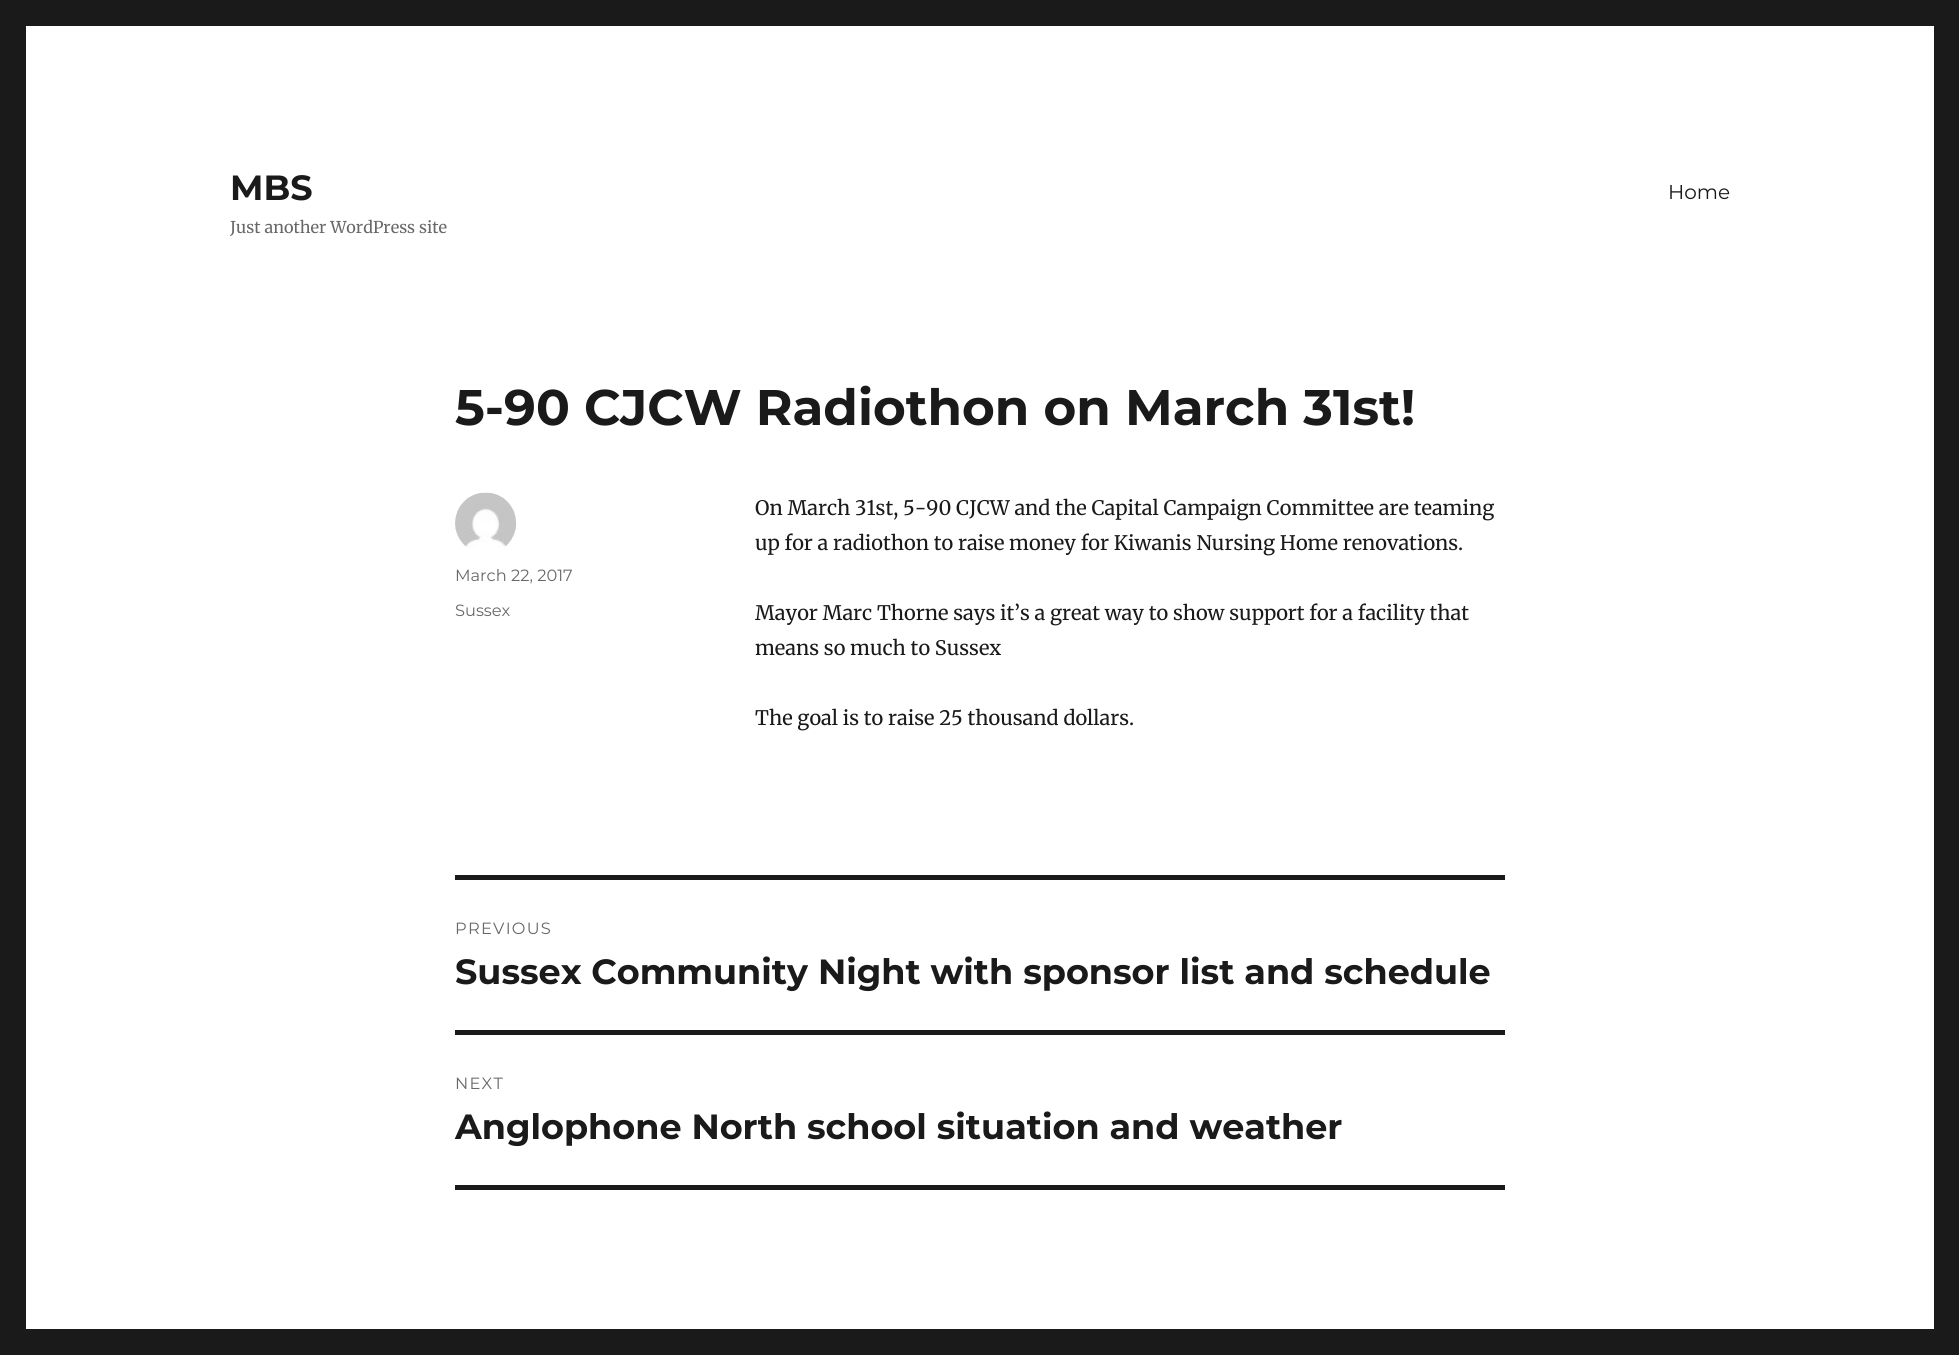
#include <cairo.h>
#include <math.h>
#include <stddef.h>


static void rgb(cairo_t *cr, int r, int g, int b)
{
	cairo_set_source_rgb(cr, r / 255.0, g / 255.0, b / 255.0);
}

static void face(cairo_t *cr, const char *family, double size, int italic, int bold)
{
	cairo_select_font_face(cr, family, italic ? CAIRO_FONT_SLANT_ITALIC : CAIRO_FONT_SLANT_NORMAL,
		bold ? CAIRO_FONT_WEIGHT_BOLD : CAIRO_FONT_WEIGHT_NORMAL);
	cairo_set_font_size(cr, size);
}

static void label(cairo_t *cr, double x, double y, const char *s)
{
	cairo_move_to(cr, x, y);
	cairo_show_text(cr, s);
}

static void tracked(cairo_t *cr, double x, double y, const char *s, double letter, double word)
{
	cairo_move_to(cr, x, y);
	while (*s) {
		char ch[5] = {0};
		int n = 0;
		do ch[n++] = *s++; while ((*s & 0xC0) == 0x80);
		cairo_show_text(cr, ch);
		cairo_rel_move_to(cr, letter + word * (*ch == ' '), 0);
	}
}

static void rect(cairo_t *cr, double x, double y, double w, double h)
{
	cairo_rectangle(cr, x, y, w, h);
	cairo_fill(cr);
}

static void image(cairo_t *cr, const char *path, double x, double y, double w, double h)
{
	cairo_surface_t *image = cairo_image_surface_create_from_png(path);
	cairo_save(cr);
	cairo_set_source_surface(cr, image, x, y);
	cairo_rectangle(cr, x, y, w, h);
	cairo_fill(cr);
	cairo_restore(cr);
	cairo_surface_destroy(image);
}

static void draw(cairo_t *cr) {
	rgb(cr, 26, 26, 26);
	cairo_paint(cr);
	rgb(cr, 255, 255, 255);
	rect(cr, 26, 26, 1908, 1303);
	face(cr, "Montserrat", 35, 0, 1);
	rgb(cr, 26, 26, 26);
	label(cr, 230, 200, "MBS");
	face(cr, "Merriweather", 16.25, 0, 0);
	rgb(cr, 104, 104, 104);
	label(cr, 230, 233, "Just another WordPress site");
	face(cr, "Montserrat", 20, 0, 0);
	rgb(cr, 26, 26, 26);
	label(cr, 1668, 199, "Home");
	face(cr, "Montserrat", 50, 0, 1);
	label(cr, 455, 425, "5-90 CJCW Radiothon on March 31st!");
	image(cr, "image0.png", 455, 492, 62, 56);
	face(cr, "Montserrat", 16.25, 0, 0);
	rgb(cr, 104, 104, 104);
	label(cr, 455, 581, "March 22, 2017");
	label(cr, 455, 616, "Sussex");
	face(cr, "Merriweather", 20, 0, 0);
	rgb(cr, 26, 26, 26);
	label(cr, 755, 515, "On March 31st, 5-90 CJCW and the Capital Campaign Committee are teaming");
	label(cr, 755, 550, "up for a radiothon to raise money for Kiwanis Nursing Home renovations.");
	label(cr, 755, 620, "Mayor Marc Thorne says it’s a great way to show support for a facility that");
	label(cr, 755, 655, "means so much to Sussex");
	label(cr, 755, 725, "The goal is to raise 25 thousand dollars.");
	rect(cr, 455, 875, 1050, 5);
	rect(cr, 455, 1185, 1050, 5);
	face(cr, "Montserrat", 16.25, 0, 0);
	rgb(cr, 104, 104, 104);
	tracked(cr, 455, 934, "PREVIOUS", 1.25, 0);
	face(cr, "Montserrat", 35, 0, 1);
	rgb(cr, 26, 26, 26);
	label(cr, 455, 984, "Sussex Community Night with sponsor list and schedule");
	rect(cr, 455, 1030, 1050, 5);
	face(cr, "Montserrat", 16.25, 0, 0);
	rgb(cr, 104, 104, 104);
	tracked(cr, 455, 1089, "NEXT", 1.25, 0);
	face(cr, "Montserrat", 35, 0, 1);
	rgb(cr, 26, 26, 26);
	label(cr, 455, 1139, "Anglophone North school situation and weather");
}

int main(void) {
	cairo_surface_t *surface = cairo_image_surface_create(CAIRO_FORMAT_RGB24, 1959, 1355);
	cairo_t *cr = cairo_create(surface);
	cairo_font_options_t *options = cairo_font_options_create();
	cairo_font_options_set_hint_metrics(options, CAIRO_HINT_METRICS_OFF);
	cairo_font_options_set_hint_style(options, CAIRO_HINT_STYLE_NONE);
	cairo_set_font_options(cr, options);
	cairo_set_miter_limit(cr, 4);
	draw(cr);
	cairo_surface_write_to_png(surface, "render.png");
	cairo_font_options_destroy(options);
	cairo_destroy(cr);
	cairo_surface_destroy(surface);
	return 0;
}
